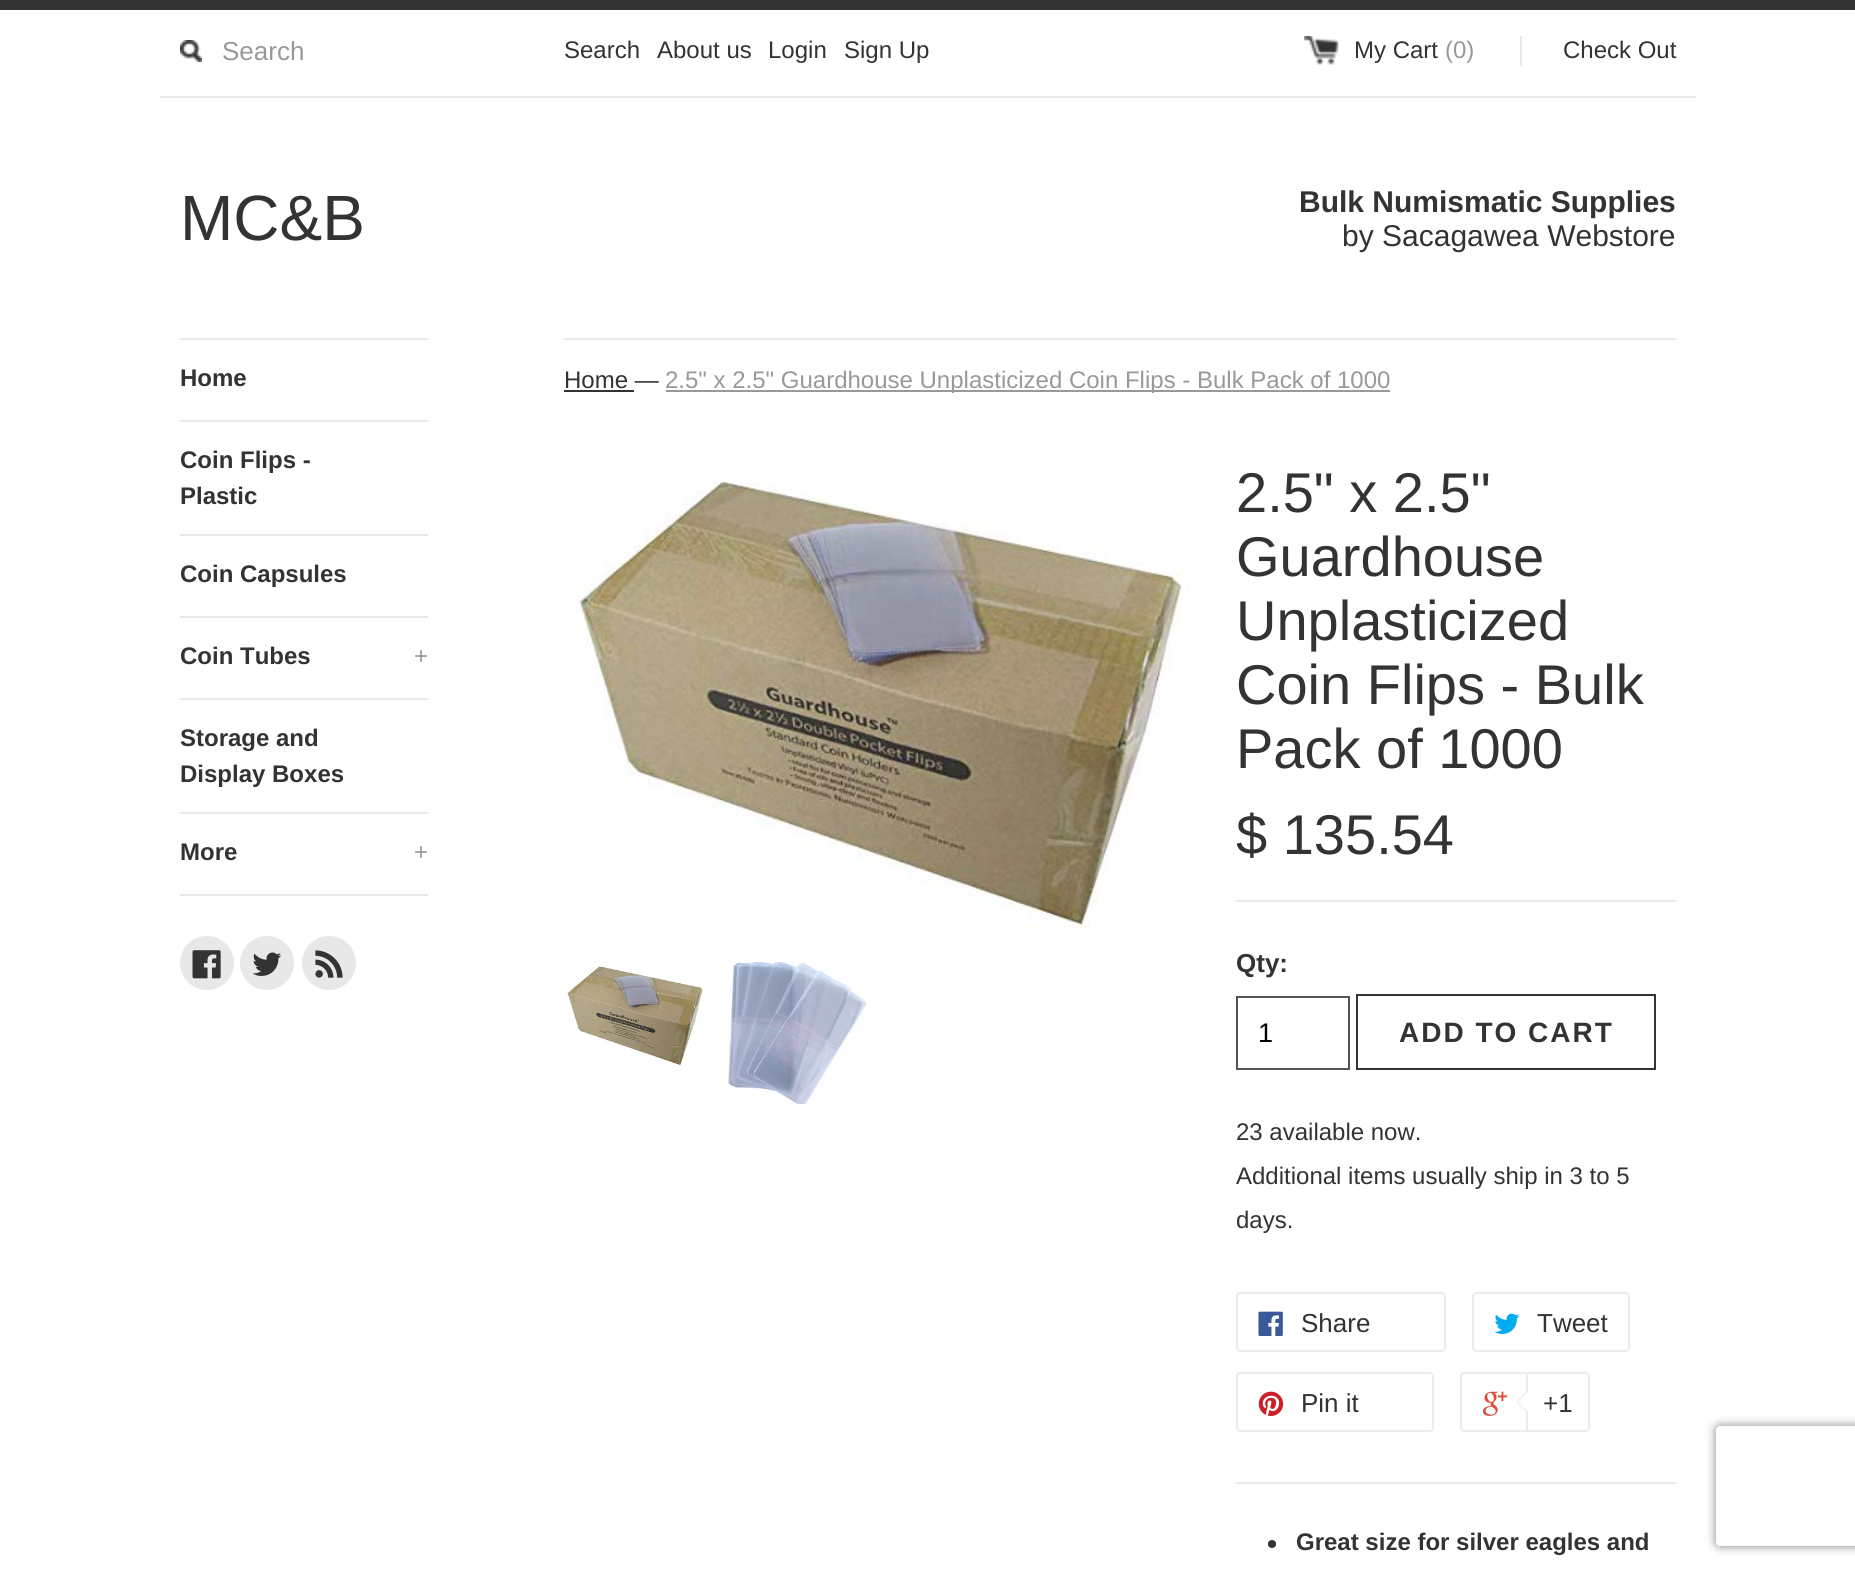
#include <cairo.h>
#include <math.h>
#include <stddef.h>


static void rgb(cairo_t *cr, int r, int g, int b)
{
	cairo_set_source_rgb(cr, r / 255.0, g / 255.0, b / 255.0);
}

static void face(cairo_t *cr, const char *family, double size, int italic, int bold)
{
	cairo_select_font_face(cr, family, italic ? CAIRO_FONT_SLANT_ITALIC : CAIRO_FONT_SLANT_NORMAL,
		bold ? CAIRO_FONT_WEIGHT_BOLD : CAIRO_FONT_WEIGHT_NORMAL);
	cairo_set_font_size(cr, size);
}

static void label(cairo_t *cr, double x, double y, const char *s)
{
	cairo_move_to(cr, x, y);
	cairo_show_text(cr, s);
}

static void tracked(cairo_t *cr, double x, double y, const char *s, double letter, double word)
{
	cairo_move_to(cr, x, y);
	while (*s) {
		char ch[5] = {0};
		int n = 0;
		do ch[n++] = *s++; while ((*s & 0xC0) == 0x80);
		cairo_show_text(cr, ch);
		cairo_rel_move_to(cr, letter + word * (*ch == ' '), 0);
	}
}

static void rect(cairo_t *cr, double x, double y, double w, double h)
{
	cairo_rectangle(cr, x, y, w, h);
	cairo_fill(cr);
}

static void rrect(cairo_t *cr, double x, double y, double w, double h, double r)
{
	cairo_new_sub_path(cr);
	cairo_arc(cr, x + w - r, y + h - r, r, 0, M_PI / 2);
	cairo_arc(cr, x + r, y + h - r, r, M_PI / 2, M_PI);
	cairo_arc(cr, x + r, y + r, r, M_PI, 1.5 * M_PI);
	cairo_arc(cr, x + w - r, y + r, r, 1.5 * M_PI, 2 * M_PI);
	cairo_close_path(cr);
}

static void soft_shadow(cairo_t *cr, double x, double y, double w, double h, double r, double blur, double alpha)
{
	cairo_push_group_with_content(cr, CAIRO_CONTENT_ALPHA);
	cairo_set_operator(cr, CAIRO_OPERATOR_SOURCE);
	for (int i = 15; i >= -15 && fmin(w, h) + blur * i / 3 > 0; i -= 2) {
		double e = blur * i / 6;
		cairo_set_source_rgba(cr, 0, 0, 0, alpha * erfc((i - 1) / 8.5) / 2);
		rrect(cr, x - e, y - e, w + 2 * e, h + 2 * e, fmax(0, fmin(r + e + blur * .6, fmin(w, h) / 2 + e)));
		cairo_fill(cr);
	}
	cairo_pattern_t *soft = cairo_pop_group(cr);
	cairo_mask(cr, soft);
	cairo_pattern_destroy(soft);
}

static void image(cairo_t *cr, const char *path, double x, double y, double w, double h)
{
	cairo_surface_t *image = cairo_image_surface_create_from_png(path);
	cairo_save(cr);
	cairo_set_source_surface(cr, image, x, y);
	cairo_rectangle(cr, x, y, w, h);
	cairo_fill(cr);
	cairo_restore(cr);
	cairo_surface_destroy(image);
}

static void draw(cairo_t *cr) {
	rgb(cr, 255, 255, 255);
	cairo_paint(cr);
	rgb(cr, 51, 51, 51);
	rect(cr, 0, 0, 1855, 10);
	rgb(cr, 232, 232, 232);
	rect(cr, 160, 96, 1536, 2);
	image(cr, "image0.png", 180, 40, 22, 22);
	face(cr, "Liberation Sans", 26, 0, 0);
	rgb(cr, 153, 153, 153);
	label(cr, 222, 60, "Search");
	face(cr, "Liberation Sans", 24, 0, 0);
	rgb(cr, 51, 51, 51);
	label(cr, 564, 58, "Search");
	label(cr, 657, 58, "About us");
	label(cr, 768, 58, "Login");
	label(cr, 844, 58, "Sign Up");
	image(cr, "image1.png", 1304, 36, 35, 29);
	label(cr, 1354, 58, "My Cart");
	rgb(cr, 153, 153, 153);
	label(cr, 1445, 58, "(0)");
	rgb(cr, 51, 51, 51);
	label(cr, 1563, 58, "Check Out");
	rgb(cr, 232, 232, 232);
	rect(cr, 1520, 36, 2, 30);
	face(cr, "Liberation Sans", 64, 0, 0);
	rgb(cr, 51, 51, 51);
	label(cr, 180, 240, "MC&B");
	face(cr, "Liberation Sans", 30, 0, 1);
	label(cr, 1299, 212, "Bulk Numismatic Supplies");
	face(cr, "Liberation Sans", 30, 0, 0);
	label(cr, 1342, 246, "by Sacagawea Webstore");
	rgb(cr, 232, 232, 232);
	rect(cr, 180, 894, 248, 2);
	rect(cr, 180, 338, 248, 2);
	face(cr, "Liberation Sans", 24, 0, 1);
	rgb(cr, 51, 51, 51);
	label(cr, 180, 386, "Home");
	rgb(cr, 232, 232, 232);
	rect(cr, 180, 420, 248, 2);
	rgb(cr, 51, 51, 51);
	label(cr, 180, 468, "Coin Flips -");
	label(cr, 180, 504, "Plastic");
	rgb(cr, 232, 232, 232);
	rect(cr, 180, 534, 248, 2);
	rgb(cr, 51, 51, 51);
	label(cr, 180, 582, "Coin Capsules");
	rgb(cr, 232, 232, 232);
	rect(cr, 180, 616, 248, 2);
	rgb(cr, 51, 51, 51);
	label(cr, 180, 664, "Coin Tubes");
	face(cr, "Liberation Sans", 24, 0, 0);
	rgb(cr, 153, 153, 153);
	label(cr, 414, 664, "+");
	rgb(cr, 232, 232, 232);
	rect(cr, 180, 698, 248, 2);
	face(cr, "Liberation Sans", 24, 0, 1);
	rgb(cr, 51, 51, 51);
	label(cr, 180, 746, "Storage and");
	label(cr, 180, 782, "Display Boxes");
	rgb(cr, 232, 232, 232);
	rect(cr, 180, 812, 248, 2);
	rgb(cr, 51, 51, 51);
	label(cr, 180, 860, "More");
	face(cr, "Liberation Sans", 24, 0, 0);
	rgb(cr, 153, 153, 153);
	label(cr, 414, 860, "+");
	rgb(cr, 232, 232, 232);
	cairo_new_path(cr);
	cairo_arc(cr, 207, 963, 27, 0, 2 * M_PI);
	cairo_fill(cr);
	image(cr, "image2.png", 192, 950, 29, 29);
	cairo_arc(cr, 267, 963, 27, 0, 2 * M_PI);
	cairo_fill(cr);
	image(cr, "image3.png", 252, 952, 30, 24);
	cairo_arc(cr, 329, 963, 27, 0, 2 * M_PI);
	cairo_fill(cr);
	image(cr, "image4.png", 315, 950, 28, 28);
	rect(cr, 564, 338, 1112, 2);
	rgb(cr, 51, 51, 51);
	label(cr, 564, 388, "Home —");
	rect(cr, 564, 390, 70, 2);
	rgb(cr, 153, 153, 153);
	rect(cr, 666, 390, 724, 2);
	label(cr, 665, 388, "2.5\" x 2.5\" Guardhouse Unplasticized Coin Flips - Bulk Pack of 1000");
	image(cr, "image5.png", 575, 481, 615, 448);
	image(cr, "image6.png", 564, 966, 142, 100);
	image(cr, "image7.png", 728, 962, 139, 142);
	face(cr, "Liberation Sans", 56, 0, 0);
	rgb(cr, 51, 51, 51);
	label(cr, 1236, 512, "2.5\" x 2.5\"");
	label(cr, 1236, 576, "Guardhouse");
	label(cr, 1236, 640, "Unplasticized");
	label(cr, 1236, 704, "Coin Flips - Bulk");
	label(cr, 1236, 768, "Pack of 1000");
	label(cr, 1236, 854, "$ 135.54");
	rgb(cr, 232, 232, 232);
	rect(cr, 1236, 900, 440, 2);
	face(cr, "Liberation Sans", 26, 0, 1);
	rgb(cr, 51, 51, 51);
	label(cr, 1236, 972, "Qty:");
	cairo_rectangle(cr, 1237, 997, 112, 72);
	rgb(cr, 85, 85, 85);
	cairo_stroke(cr);
	face(cr, "Liberation Sans", 27, 0, 0);
	rgb(cr, 0, 0, 0);
	label(cr, 1258, 1042, "1");
	cairo_rectangle(cr, 1357, 995, 298, 74);
	rgb(cr, 51, 51, 51);
	cairo_stroke(cr);
	face(cr, "Liberation Sans", 28, 0, 1);
	tracked(cr, 1399, 1042, "ADD TO CART", 2, 0);
	face(cr, "Liberation Sans", 24, 0, 0);
	label(cr, 1236, 1140, "23 available now.");
	label(cr, 1236, 1184, "Additional items usually ship in 3 to 5");
	label(cr, 1236, 1228, "days.");
	rrect(cr, 1237, 1293, 208, 58, 3);
	rgb(cr, 236, 236, 236);
	cairo_stroke(cr);
	image(cr, "image8.png", 1258, 1311, 25, 25);
	face(cr, "Liberation Sans", 26, 0, 0);
	rgb(cr, 51, 51, 51);
	label(cr, 1301, 1332, "Share");
	rrect(cr, 1473, 1293, 156, 58, 3);
	rgb(cr, 236, 236, 236);
	cairo_stroke(cr);
	image(cr, "image9.png", 1494, 1313, 26, 21);
	rgb(cr, 51, 51, 51);
	label(cr, 1537, 1332, "Tweet");
	rrect(cr, 1237, 1373, 196, 58, 3);
	rgb(cr, 236, 236, 236);
	cairo_stroke(cr);
	image(cr, "image10.png", 1258, 1391, 26, 25);
	rgb(cr, 51, 51, 51);
	label(cr, 1301, 1412, "Pin it");
	rrect(cr, 1461, 1373, 126, 58, 3);
	rgb(cr, 236, 236, 236);
	cairo_stroke(cr);
	image(cr, "image11.png", 1482, 1391, 26, 25);
	rgb(cr, 255, 255, 255);
	cairo_new_path(cr);
	cairo_move_to(cr, 1527, 1373);
	cairo_line_to(cr, 1586, 1373);
	cairo_curve_to(cr, 1587.5, 1373, 1589, 1374.5, 1589, 1376);
	cairo_line_to(cr, 1589, 1428);
	cairo_curve_to(cr, 1589, 1429.5, 1587.5, 1431, 1586, 1431);
	cairo_line_to(cr, 1527, 1431);
	cairo_close_path(cr);
	cairo_fill_preserve(cr);
	rgb(cr, 236, 236, 236);
	cairo_stroke(cr);
	cairo_new_path(cr);
	cairo_move_to(cr, 1528, 1390);
	cairo_line_to(cr, 1528, 1414);
	cairo_line_to(cr, 1516, 1402);
	cairo_close_path(cr);
	cairo_fill(cr);
	rgb(cr, 255, 255, 255);
	cairo_new_path(cr);
	cairo_move_to(cr, 1530, 1390);
	cairo_line_to(cr, 1530, 1414);
	cairo_line_to(cr, 1518, 1402);
	cairo_close_path(cr);
	cairo_fill(cr);
	rgb(cr, 51, 51, 51);
	label(cr, 1543, 1412, "+1");
	rgb(cr, 232, 232, 232);
	rect(cr, 1236, 1482, 440, 2);
	rgb(cr, 51, 51, 51);
	cairo_new_path(cr);
	cairo_arc(cr, 1272, 1544, 4, 0, 2 * M_PI);
	cairo_fill(cr);
	face(cr, "Liberation Sans", 24, 0, 1);
	label(cr, 1296, 1550, "Great size for silver eagles and");
	cairo_save(cr);
	cairo_set_fill_rule(cr, CAIRO_FILL_RULE_EVEN_ODD);
	cairo_new_path(cr);
	cairo_move_to(cr, 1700, 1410);
	cairo_line_to(cr, 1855, 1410);
	cairo_line_to(cr, 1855, 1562);
	cairo_line_to(cr, 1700, 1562);
	cairo_close_path(cr);
	cairo_move_to(cr, 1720, 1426);
	cairo_line_to(cr, 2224, 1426);
	cairo_curve_to(cr, 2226, 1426, 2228, 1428, 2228, 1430);
	cairo_line_to(cr, 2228, 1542);
	cairo_curve_to(cr, 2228, 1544, 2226, 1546, 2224, 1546);
	cairo_line_to(cr, 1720, 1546);
	cairo_curve_to(cr, 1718, 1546, 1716, 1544, 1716, 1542);
	cairo_line_to(cr, 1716, 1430);
	cairo_curve_to(cr, 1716, 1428, 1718, 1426, 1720, 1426);
	cairo_close_path(cr);
	cairo_clip(cr);
	rgb(cr, 128, 128, 128);
	soft_shadow(cr, 1716, 1426, 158, 120, 4, 5, 1);
	cairo_restore(cr);
}

int main(void) {
	cairo_surface_t *surface = cairo_image_surface_create(CAIRO_FORMAT_RGB24, 1855, 1574);
	cairo_t *cr = cairo_create(surface);
	cairo_font_options_t *options = cairo_font_options_create();
	cairo_font_options_set_hint_metrics(options, CAIRO_HINT_METRICS_OFF);
	cairo_font_options_set_hint_style(options, CAIRO_HINT_STYLE_NONE);
	cairo_set_font_options(cr, options);
	cairo_set_miter_limit(cr, 4);
	draw(cr);
	cairo_surface_write_to_png(surface, "render.png");
	cairo_font_options_destroy(options);
	cairo_destroy(cr);
	cairo_surface_destroy(surface);
	return 0;
}
